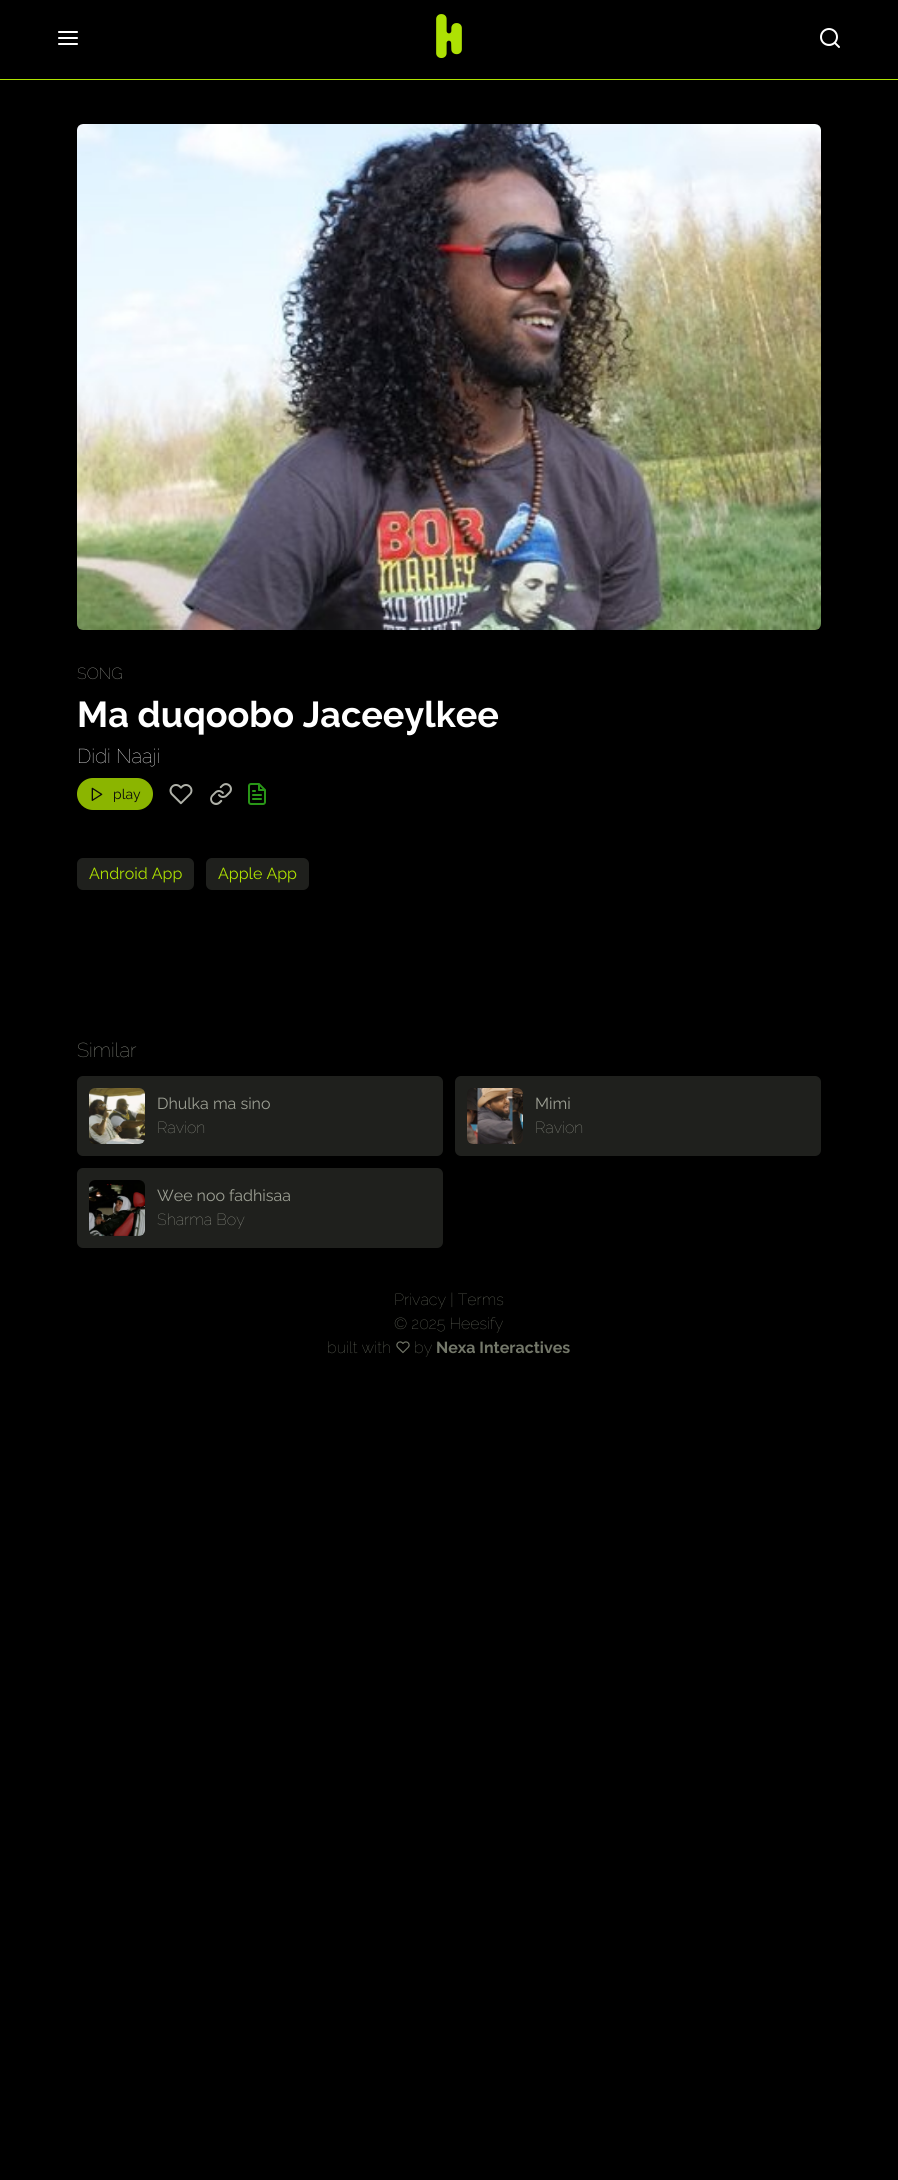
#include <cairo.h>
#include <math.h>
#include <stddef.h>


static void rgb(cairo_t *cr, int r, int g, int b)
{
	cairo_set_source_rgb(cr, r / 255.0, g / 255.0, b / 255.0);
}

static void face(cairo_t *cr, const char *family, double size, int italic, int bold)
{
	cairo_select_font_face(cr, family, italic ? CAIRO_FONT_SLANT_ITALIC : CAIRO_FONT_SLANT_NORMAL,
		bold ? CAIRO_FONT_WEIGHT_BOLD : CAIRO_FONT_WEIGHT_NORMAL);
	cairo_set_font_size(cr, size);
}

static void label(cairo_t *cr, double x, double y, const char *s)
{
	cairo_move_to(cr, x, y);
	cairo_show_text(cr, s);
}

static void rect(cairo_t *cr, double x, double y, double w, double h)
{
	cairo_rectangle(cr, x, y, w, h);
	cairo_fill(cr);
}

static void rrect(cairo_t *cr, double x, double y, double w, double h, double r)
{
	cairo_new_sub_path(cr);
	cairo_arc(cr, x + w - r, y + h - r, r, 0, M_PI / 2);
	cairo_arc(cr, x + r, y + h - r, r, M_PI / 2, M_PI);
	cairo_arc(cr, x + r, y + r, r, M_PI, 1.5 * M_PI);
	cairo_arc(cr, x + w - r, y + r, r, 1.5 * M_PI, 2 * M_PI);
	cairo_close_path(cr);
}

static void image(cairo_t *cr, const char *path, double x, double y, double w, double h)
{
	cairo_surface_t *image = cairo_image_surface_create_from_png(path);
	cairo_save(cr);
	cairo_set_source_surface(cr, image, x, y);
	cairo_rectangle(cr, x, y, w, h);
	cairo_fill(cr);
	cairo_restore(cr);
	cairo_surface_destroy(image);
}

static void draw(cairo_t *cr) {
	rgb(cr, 0, 0, 0);
	cairo_paint(cr);
	rgb(cr, 174, 226, 0);
	rect(cr, 0, 79, 898, 1);
	image(cr, "image0.png", 58, 31, 20, 14);
	image(cr, "image1.png", 436, 14, 26, 44);
	image(cr, "image2.png", 820, 28, 20, 20);
	image(cr, "image3.png", 77, 124, 744, 506);
	face(cr, "Raleway Thin", 16, 0, 0);
	rgb(cr, 176, 178, 169);
	label(cr, 77, 679, "SONG");
	face(cr, "Raleway", 36, 0, 1);
	rgb(cr, 255, 255, 255);
	label(cr, 77, 727, "Ma duqoobo Jaceeylkee");
	face(cr, "Raleway Thin", 20, 0, 0);
	label(cr, 77, 763, "Didi Naaji");
	rgb(cr, 139, 181, 0);
	rrect(cr, 77, 778, 76, 32, 16);
	cairo_fill(cr);
	image(cr, "image4.png", 91, 787, 12, 14);
	face(cr, "Raleway", 14, 0, 0);
	rgb(cr, 10, 11, 10);
	label(cr, 113, 799, "play");
	image(cr, "image5.png", 169, 784, 24, 21);
	image(cr, "image6.png", 210, 783, 22, 22);
	image(cr, "image7.png", 248, 783, 18, 22);
	rgb(cr, 31, 32, 29);
	rrect(cr, 77, 858, 117, 32, 6);
	cairo_fill(cr);
	face(cr, "Raleway", 16, 0, 0);
	rgb(cr, 174, 226, 0);
	label(cr, 89, 879, "Android App");
	rgb(cr, 31, 32, 29);
	rrect(cr, 206, 858, 103, 32, 6);
	cairo_fill(cr);
	rgb(cr, 174, 226, 0);
	label(cr, 218, 879, "Apple App");
	face(cr, "Raleway Thin", 20, 0, 0);
	rgb(cr, 156, 159, 147);
	label(cr, 77, 1057, "Similar");
	rgb(cr, 31, 32, 29);
	rrect(cr, 77, 1076, 366, 80, 6);
	cairo_fill(cr);
	image(cr, "image8.png", 89, 1088, 56, 56);
	face(cr, "Raleway", 16, 0, 0);
	rgb(cr, 156, 159, 147);
	label(cr, 157, 1109, "Dhulka ma sino");
	face(cr, "Raleway Thin", 16, 0, 0);
	label(cr, 157, 1133, "Ravion");
	rgb(cr, 31, 32, 29);
	rrect(cr, 455, 1076, 366, 80, 6);
	cairo_fill(cr);
	image(cr, "image9.png", 467, 1088, 56, 56);
	face(cr, "Raleway", 16, 0, 0);
	rgb(cr, 156, 159, 147);
	label(cr, 535, 1109, "Mimi");
	face(cr, "Raleway Thin", 16, 0, 0);
	label(cr, 535, 1133, "Ravion");
	rgb(cr, 31, 32, 29);
	rrect(cr, 77, 1168, 366, 80, 6);
	cairo_fill(cr);
	image(cr, "image10.png", 89, 1180, 56, 56);
	face(cr, "Raleway", 16, 0, 0);
	rgb(cr, 156, 159, 147);
	label(cr, 157, 1201, "Wee noo fadhisaa");
	face(cr, "Raleway Thin", 16, 0, 0);
	label(cr, 157, 1225, "Sharma Boy");
	rgb(cr, 115, 119, 105);
	label(cr, 394, 1305, "Privacy | Terms");
	label(cr, 394, 1329, "© 2025 Heesify");
	label(cr, 327, 1353, "built with");
	image(cr, "image11.png", 396, 1341, 14, 13);
	label(cr, 414, 1353, "by");
	face(cr, "Raleway", 16, 0, 1);
	label(cr, 436, 1353, "Nexa Interactives");
}

int main(void) {
	cairo_surface_t *surface = cairo_image_surface_create(CAIRO_FORMAT_RGB24, 898, 2180);
	cairo_t *cr = cairo_create(surface);
	cairo_font_options_t *options = cairo_font_options_create();
	cairo_font_options_set_hint_metrics(options, CAIRO_HINT_METRICS_OFF);
	cairo_font_options_set_hint_style(options, CAIRO_HINT_STYLE_NONE);
	cairo_set_font_options(cr, options);
	cairo_set_miter_limit(cr, 4);
	draw(cr);
	cairo_surface_write_to_png(surface, "render.png");
	cairo_font_options_destroy(options);
	cairo_destroy(cr);
	cairo_surface_destroy(surface);
	return 0;
}
